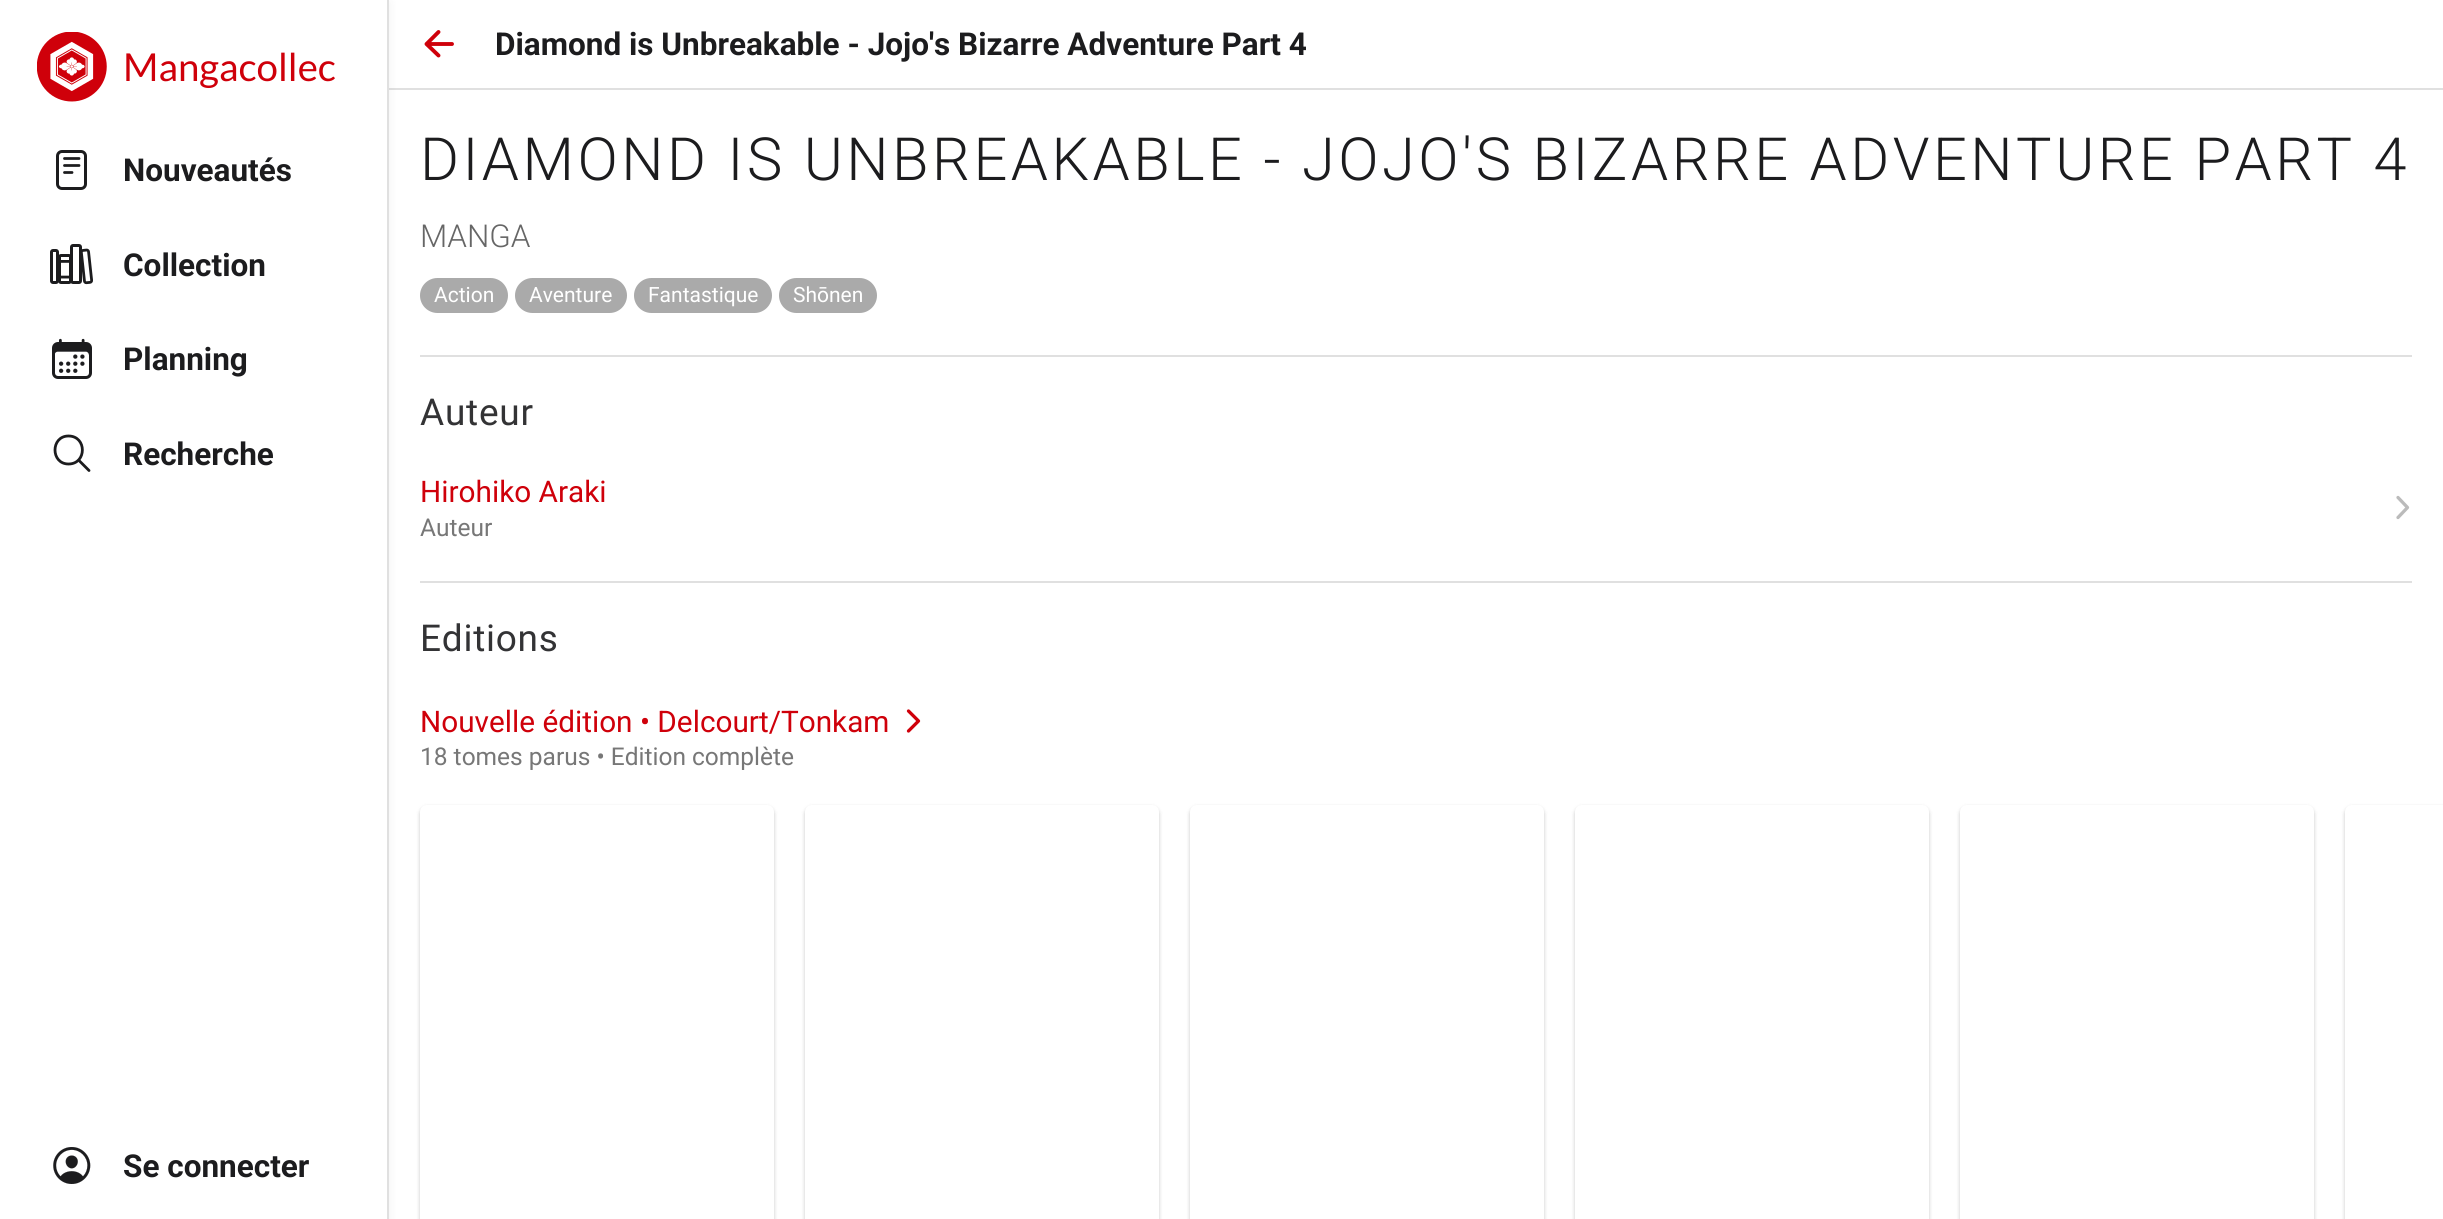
#include <cairo.h>
#include <math.h>
#include <stddef.h>


static void rgb(cairo_t *cr, int r, int g, int b)
{
	cairo_set_source_rgb(cr, r / 255.0, g / 255.0, b / 255.0);
}

static void face(cairo_t *cr, const char *family, double size, int italic, int bold)
{
	cairo_select_font_face(cr, family, italic ? CAIRO_FONT_SLANT_ITALIC : CAIRO_FONT_SLANT_NORMAL,
		bold ? CAIRO_FONT_WEIGHT_BOLD : CAIRO_FONT_WEIGHT_NORMAL);
	cairo_set_font_size(cr, size);
}

static void label(cairo_t *cr, double x, double y, const char *s)
{
	cairo_move_to(cr, x, y);
	cairo_show_text(cr, s);
}

static void tracked(cairo_t *cr, double x, double y, const char *s, double letter, double word)
{
	cairo_move_to(cr, x, y);
	while (*s) {
		char ch[5] = {0};
		int n = 0;
		do ch[n++] = *s++; while ((*s & 0xC0) == 0x80);
		cairo_show_text(cr, ch);
		cairo_rel_move_to(cr, letter + word * (*ch == ' '), 0);
	}
}

static void rect(cairo_t *cr, double x, double y, double w, double h)
{
	cairo_rectangle(cr, x, y, w, h);
	cairo_fill(cr);
}

static void rrect(cairo_t *cr, double x, double y, double w, double h, double r)
{
	cairo_new_sub_path(cr);
	cairo_arc(cr, x + w - r, y + h - r, r, 0, M_PI / 2);
	cairo_arc(cr, x + r, y + h - r, r, M_PI / 2, M_PI);
	cairo_arc(cr, x + r, y + r, r, M_PI, 1.5 * M_PI);
	cairo_arc(cr, x + w - r, y + r, r, 1.5 * M_PI, 2 * M_PI);
	cairo_close_path(cr);
}

static void soft_shadow(cairo_t *cr, double x, double y, double w, double h, double r, double blur, double alpha)
{
	cairo_push_group_with_content(cr, CAIRO_CONTENT_ALPHA);
	cairo_set_operator(cr, CAIRO_OPERATOR_SOURCE);
	for (int i = 15; i >= -15 && fmin(w, h) + blur * i / 3 > 0; i -= 2) {
		double e = blur * i / 6;
		cairo_set_source_rgba(cr, 0, 0, 0, alpha * erfc((i - 1) / 8.5) / 2);
		rrect(cr, x - e, y - e, w + 2 * e, h + 2 * e, fmax(0, fmin(r + e + blur * .6, fmin(w, h) / 2 + e)));
		cairo_fill(cr);
	}
	cairo_pattern_t *soft = cairo_pop_group(cr);
	cairo_mask(cr, soft);
	cairo_pattern_destroy(soft);
}

static void image(cairo_t *cr, const char *path, double x, double y, double w, double h)
{
	cairo_surface_t *image = cairo_image_surface_create_from_png(path);
	cairo_save(cr);
	cairo_set_source_surface(cr, image, x, y);
	cairo_rectangle(cr, x, y, w, h);
	cairo_fill(cr);
	cairo_restore(cr);
	cairo_surface_destroy(image);
}

static void draw(cairo_t *cr) {
	rgb(cr, 255, 255, 255);
	cairo_paint(cr);
	rgb(cr, 224, 224, 224);
	rect(cr, 389, 88, 2054, 2);
	rgb(cr, 0, 0, 0);
	soft_shadow(cr, 0, 2, 389, 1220, 0, 5, 0.06);
	rgb(cr, 255, 255, 255);
	rect(cr, 0, 0, 387, 1219);
	rgb(cr, 224, 224, 224);
	rect(cr, 387, 0, 2, 1219);
	image(cr, "image0.png", 37, 32, 70, 70);
	face(cr, "Lato", 38.5, 0, 0);
	rgb(cr, 207, 0, 10);
	label(cr, 123, 81, "Mangacollec");
	rrect(cr, 57.5, 151.5, 28, 37, 4.5);
	rgb(cr, 28, 28, 30);
	cairo_set_line_width(cr, 3);
	cairo_stroke(cr);
	cairo_new_path(cr);
	cairo_move_to(cr, 64.5, 158.5);
	cairo_line_to(cr, 79, 158.5);
	cairo_move_to(cr, 64.5, 165.5);
	cairo_line_to(cr, 79, 165.5);
	cairo_move_to(cr, 64.5, 172.5);
	cairo_line_to(cr, 72, 172.5);
	cairo_set_line_width(cr, 2.8);
	cairo_set_line_cap(cr, CAIRO_LINE_CAP_ROUND);
	cairo_set_line_join(cr, CAIRO_LINE_JOIN_ROUND);
	cairo_stroke(cr);
	face(cr, "Roboto", 31.5, 0, 1);
	label(cr, 123, 181, "Nouveautés");
	image(cr, "image1.png", 50, 244, 43, 41);
	label(cr, 123, 276, "Collection");
	image(cr, "image2.png", 52, 338, 40, 41);
	label(cr, 123, 370, "Planning");
	cairo_new_path(cr);
	cairo_move_to(cr, 68.5, 436);
	cairo_curve_to(cr, 50.5, 436, 50.5, 464, 68.5, 464);
	cairo_curve_to(cr, 87, 464, 87, 436, 68.5, 436);
	cairo_close_path(cr);
	cairo_set_line_cap(cr, CAIRO_LINE_CAP_BUTT);
	cairo_set_line_join(cr, CAIRO_LINE_JOIN_MITER);
	cairo_stroke(cr);
	cairo_new_path(cr);
	cairo_move_to(cr, 79, 460.5);
	cairo_line_to(cr, 89, 470.5);
	cairo_set_line_cap(cr, CAIRO_LINE_CAP_ROUND);
	cairo_stroke(cr);
	label(cr, 123, 465, "Recherche");
	image(cr, "image3.png", 53, 1147, 38, 37);
	label(cr, 123, 1177, "Se connecter");
	cairo_new_path(cr);
	cairo_move_to(cr, 438.5, 55.5);
	cairo_line_to(cr, 426.5, 44);
	cairo_line_to(cr, 438.5, 32);
	cairo_move_to(cr, 428, 44);
	cairo_line_to(cr, 452, 44);
	rgb(cr, 207, 0, 10);
	cairo_set_line_width(cr, 3.9);
	cairo_set_line_join(cr, CAIRO_LINE_JOIN_ROUND);
	cairo_stroke(cr);
	rgb(cr, 28, 28, 30);
	label(cr, 495, 55, "Diamond is Unbreakable - Jojo's Bizarre Adventure Part 4");
	face(cr, "Roboto Light", 59.5, 0, 0);
	tracked(cr, 420, 180, "DIAMOND IS UNBREAKABLE - JOJO'S BIZARRE ADVENTURE PART 4", 3.5, 0);
	face(cr, "Roboto Light", 31.5, 0, 0);
	rgb(cr, 102, 102, 102);
	label(cr, 420, 247, "MANGA");
	rgb(cr, 170, 170, 170);
	rrect(cr, 420, 278, 88, 35, 17.5);
	cairo_fill(cr);
	face(cr, "Roboto", 21, 0, 0);
	rgb(cr, 255, 255, 255);
	label(cr, 434, 302, "Action");
	rgb(cr, 170, 170, 170);
	rrect(cr, 515, 278, 112, 35, 17.5);
	cairo_fill(cr);
	rgb(cr, 255, 255, 255);
	label(cr, 529, 302, "Aventure");
	rgb(cr, 170, 170, 170);
	rrect(cr, 634, 278, 138, 35, 17.5);
	cairo_fill(cr);
	rgb(cr, 255, 255, 255);
	label(cr, 648, 302, "Fantastique");
	rgb(cr, 170, 170, 170);
	rrect(cr, 779, 278, 98, 35, 17.5);
	cairo_fill(cr);
	rgb(cr, 255, 255, 255);
	label(cr, 793, 302, "Shōnen");
	rgb(cr, 224, 224, 224);
	rect(cr, 420, 355, 1992, 2);
	face(cr, "Roboto", 37, 0, 0);
	rgb(cr, 51, 51, 53);
	tracked(cr, 420, 425, "Auteur", 0.75, 0);
	face(cr, "Roboto", 29.75, 0, 0);
	rgb(cr, 207, 0, 10);
	label(cr, 420, 502, "Hirohiko Araki");
	face(cr, "Roboto", 24.5, 0, 0);
	rgb(cr, 119, 119, 119);
	label(cr, 420, 536, "Auteur");
	cairo_new_path(cr);
	cairo_move_to(cr, 2398, 497.5);
	cairo_line_to(cr, 2407.5, 507.5);
	cairo_line_to(cr, 2398, 517.5);
	rgb(cr, 187, 187, 187);
	cairo_set_line_width(cr, 3.3);
	cairo_stroke(cr);
	rgb(cr, 224, 224, 224);
	rect(cr, 420, 581, 1992, 2);
	face(cr, "Roboto", 37, 0, 0);
	rgb(cr, 51, 51, 53);
	tracked(cr, 420, 651, "Editions", 0.75, 0);
	face(cr, "Roboto", 29.75, 0, 0);
	rgb(cr, 207, 0, 10);
	label(cr, 420, 732, "Nouvelle édition • Delcourt/Tonkam");
	cairo_new_path(cr);
	cairo_move_to(cr, 908.5, 711);
	cairo_line_to(cr, 918.5, 721);
	cairo_line_to(cr, 908.5, 731);
	cairo_stroke(cr);
	face(cr, "Roboto", 24.5, 0, 0);
	rgb(cr, 119, 119, 119);
	label(cr, 420, 765, "18 tomes parus • Edition complète");
	rgb(cr, 0, 0, 0);
	soft_shadow(cr, 420, 807, 354, 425, 7, 2, 0.22);
	rgb(cr, 255, 255, 255);
	cairo_new_path(cr);
	cairo_move_to(cr, 427, 805);
	cairo_line_to(cr, 767, 805);
	cairo_curve_to(cr, 771, 805, 774, 808, 774, 812);
	cairo_line_to(cr, 774, 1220);
	cairo_line_to(cr, 420, 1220);
	cairo_line_to(cr, 420, 812);
	cairo_curve_to(cr, 420, 808, 423, 805, 427, 805);
	cairo_close_path(cr);
	cairo_fill(cr);
	rgb(cr, 0, 0, 0);
	soft_shadow(cr, 805, 807, 354, 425, 7, 2, 0.22);
	rgb(cr, 255, 255, 255);
	cairo_new_path(cr);
	cairo_move_to(cr, 812, 805);
	cairo_line_to(cr, 1152, 805);
	cairo_curve_to(cr, 1156, 805, 1159, 808, 1159, 812);
	cairo_line_to(cr, 1159, 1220);
	cairo_line_to(cr, 805, 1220);
	cairo_line_to(cr, 805, 812);
	cairo_curve_to(cr, 805, 808, 808, 805, 812, 805);
	cairo_close_path(cr);
	cairo_fill(cr);
	rgb(cr, 0, 0, 0);
	soft_shadow(cr, 1190, 807, 354, 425, 7, 2, 0.22);
	rgb(cr, 255, 255, 255);
	cairo_new_path(cr);
	cairo_move_to(cr, 1197, 805);
	cairo_line_to(cr, 1537, 805);
	cairo_curve_to(cr, 1541, 805, 1544, 808, 1544, 812);
	cairo_line_to(cr, 1544, 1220);
	cairo_line_to(cr, 1190, 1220);
	cairo_line_to(cr, 1190, 812);
	cairo_curve_to(cr, 1190, 808, 1193, 805, 1197, 805);
	cairo_close_path(cr);
	cairo_fill(cr);
	rgb(cr, 0, 0, 0);
	soft_shadow(cr, 1575, 807, 354, 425, 7, 2, 0.22);
	rgb(cr, 255, 255, 255);
	cairo_new_path(cr);
	cairo_move_to(cr, 1582, 805);
	cairo_line_to(cr, 1922, 805);
	cairo_curve_to(cr, 1926, 805, 1929, 808, 1929, 812);
	cairo_line_to(cr, 1929, 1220);
	cairo_line_to(cr, 1575, 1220);
	cairo_line_to(cr, 1575, 812);
	cairo_curve_to(cr, 1575, 808, 1578, 805, 1582, 805);
	cairo_close_path(cr);
	cairo_fill(cr);
	rgb(cr, 0, 0, 0);
	soft_shadow(cr, 1960, 807, 354, 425, 7, 2, 0.22);
	rgb(cr, 255, 255, 255);
	cairo_new_path(cr);
	cairo_move_to(cr, 1967, 805);
	cairo_line_to(cr, 2307, 805);
	cairo_curve_to(cr, 2311, 805, 2314, 808, 2314, 812);
	cairo_line_to(cr, 2314, 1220);
	cairo_line_to(cr, 1960, 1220);
	cairo_line_to(cr, 1960, 812);
	cairo_curve_to(cr, 1960, 808, 1963, 805, 1967, 805);
	cairo_close_path(cr);
	cairo_fill(cr);
	rgb(cr, 0, 0, 0);
	soft_shadow(cr, 2345, 807, 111, 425, 7, 2, 0.22);
	rgb(cr, 255, 255, 255);
	cairo_new_path(cr);
	cairo_move_to(cr, 2352, 805);
	cairo_line_to(cr, 2443, 805);
	cairo_line_to(cr, 2443, 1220);
	cairo_line_to(cr, 2345, 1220);
	cairo_line_to(cr, 2345, 812);
	cairo_curve_to(cr, 2345, 808, 2348, 805, 2352, 805);
	cairo_close_path(cr);
	cairo_fill(cr);
}

int main(void) {
	cairo_surface_t *surface = cairo_image_surface_create(CAIRO_FORMAT_RGB24, 2443, 1219);
	cairo_t *cr = cairo_create(surface);
	cairo_font_options_t *options = cairo_font_options_create();
	cairo_font_options_set_hint_metrics(options, CAIRO_HINT_METRICS_OFF);
	cairo_font_options_set_hint_style(options, CAIRO_HINT_STYLE_NONE);
	cairo_set_font_options(cr, options);
	cairo_set_miter_limit(cr, 4);
	draw(cr);
	cairo_surface_write_to_png(surface, "render.png");
	cairo_font_options_destroy(options);
	cairo_destroy(cr);
	cairo_surface_destroy(surface);
	return 0;
}
